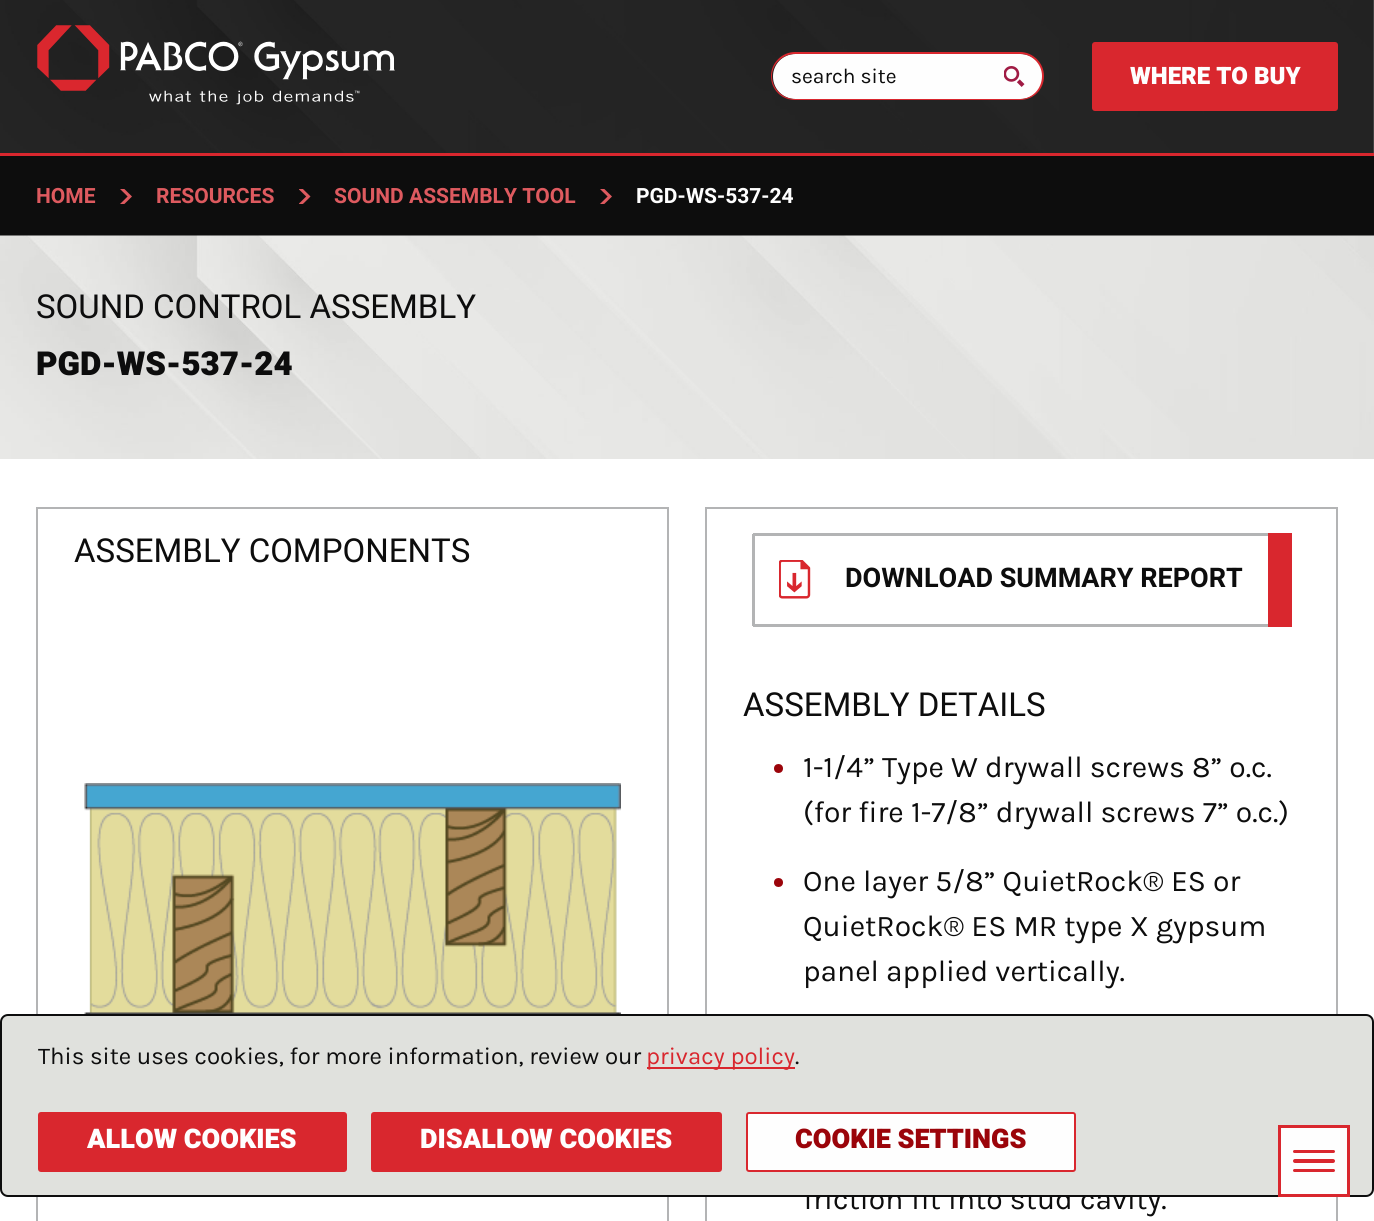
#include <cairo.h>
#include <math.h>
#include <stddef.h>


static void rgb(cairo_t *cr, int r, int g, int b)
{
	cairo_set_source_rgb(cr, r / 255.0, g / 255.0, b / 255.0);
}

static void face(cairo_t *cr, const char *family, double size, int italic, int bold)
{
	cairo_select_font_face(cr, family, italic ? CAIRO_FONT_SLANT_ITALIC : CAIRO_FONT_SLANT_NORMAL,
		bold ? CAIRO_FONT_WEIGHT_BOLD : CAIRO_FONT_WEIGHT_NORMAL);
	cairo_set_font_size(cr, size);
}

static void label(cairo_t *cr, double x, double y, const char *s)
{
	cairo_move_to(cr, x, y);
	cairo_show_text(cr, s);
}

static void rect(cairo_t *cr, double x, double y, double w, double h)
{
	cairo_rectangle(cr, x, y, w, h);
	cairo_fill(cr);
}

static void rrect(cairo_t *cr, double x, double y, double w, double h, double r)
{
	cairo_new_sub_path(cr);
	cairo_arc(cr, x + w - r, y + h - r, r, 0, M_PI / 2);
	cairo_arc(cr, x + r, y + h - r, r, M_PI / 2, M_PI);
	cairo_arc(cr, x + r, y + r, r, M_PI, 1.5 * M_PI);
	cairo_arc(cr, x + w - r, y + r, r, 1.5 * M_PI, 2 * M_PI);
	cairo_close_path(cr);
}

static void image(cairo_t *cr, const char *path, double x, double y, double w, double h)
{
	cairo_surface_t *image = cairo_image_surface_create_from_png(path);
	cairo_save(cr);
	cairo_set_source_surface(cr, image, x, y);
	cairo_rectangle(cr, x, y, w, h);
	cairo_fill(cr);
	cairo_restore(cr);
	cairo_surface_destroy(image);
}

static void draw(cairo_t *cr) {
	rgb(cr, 255, 255, 255);
	cairo_paint(cr);
	image(cr, "image0.png", 0, 0, 1374, 153);
	rgb(cr, 217, 39, 46);
	rect(cr, 0, 153, 1374, 3);
	image(cr, "image1.png", 37, 25, 358, 80);
	rgb(cr, 254, 254, 254);
	cairo_new_path(cr);
	cairo_move_to(cr, 795.5, 54);
	cairo_line_to(cr, 1004, 54);
	cairo_line_to(cr, 1004, 99);
	cairo_line_to(cr, 795.5, 99);
	cairo_curve_to(cr, 783, 99, 773, 89, 773, 76.5);
	cairo_curve_to(cr, 773, 64, 783, 54, 795.5, 54);
	cairo_close_path(cr);
	cairo_fill(cr);
	rgb(cr, 217, 39, 46);
	cairo_set_fill_rule(cr, CAIRO_FILL_RULE_EVEN_ODD);
	cairo_new_path(cr);
	cairo_move_to(cr, 795, 52);
	cairo_line_to(cr, 1004, 52);
	cairo_line_to(cr, 1004, 100);
	cairo_line_to(cr, 795, 100);
	cairo_curve_to(cr, 782, 100, 771, 90, 771, 76);
	cairo_curve_to(cr, 771, 63, 782, 52, 795, 52);
	cairo_close_path(cr);
	cairo_move_to(cr, 795, 54);
	cairo_line_to(cr, 1004, 54);
	cairo_line_to(cr, 1004, 99);
	cairo_line_to(cr, 795, 99);
	cairo_curve_to(cr, 783, 99, 772, 89, 772, 76);
	cairo_curve_to(cr, 772, 64, 783, 54, 795, 54);
	cairo_close_path(cr);
	cairo_fill(cr);
	face(cr, "Karla", 21, 0, 0);
	rgb(cr, 13, 13, 13);
	label(cr, 791, 83, "search site");
	rgb(cr, 254, 254, 254);
	cairo_new_path(cr);
	cairo_move_to(cr, 1004, 54);
	cairo_line_to(cr, 1020.5, 54);
	cairo_curve_to(cr, 1033, 54, 1043, 64, 1043, 76.5);
	cairo_curve_to(cr, 1043, 89, 1033, 99, 1020.5, 99);
	cairo_line_to(cr, 1004, 99);
	cairo_close_path(cr);
	cairo_fill(cr);
	rgb(cr, 217, 39, 46);
	cairo_new_path(cr);
	cairo_move_to(cr, 1004, 52);
	cairo_line_to(cr, 1020, 52);
	cairo_curve_to(cr, 1033, 52, 1044, 63, 1044, 76);
	cairo_curve_to(cr, 1044, 90, 1033, 100, 1020, 100);
	cairo_line_to(cr, 1004, 100);
	cairo_close_path(cr);
	cairo_move_to(cr, 1004, 54);
	cairo_line_to(cr, 1020, 54);
	cairo_curve_to(cr, 1032, 54, 1042, 64, 1042, 76);
	cairo_curve_to(cr, 1042, 89, 1032, 99, 1020, 99);
	cairo_line_to(cr, 1004, 99);
	cairo_close_path(cr);
	cairo_fill(cr);
	image(cr, "image2.png", 1004, 66, 21, 21);
	rrect(cr, 1093, 43, 244, 67, 2);
	cairo_fill_preserve(cr);
	cairo_stroke(cr);
	face(cr, "Heebo Black", 24, 0, 0);
	rgb(cr, 254, 254, 254);
	label(cr, 1130, 84, "WHERE TO BUY");
	rgb(cr, 13, 13, 13);
	rect(cr, 0, 156, 1374, 80);
	face(cr, "Heebo", 21, 0, 1);
	rgb(cr, 222, 90, 95);
	label(cr, 36, 203, "HOME");
	image(cr, "image3.png", 120, 189, 12, 15);
	label(cr, 156, 203, "RESOURCES");
	image(cr, "image4.png", 299, 189, 12, 15);
	label(cr, 334, 203, "SOUND ASSEMBLY TOOL");
	image(cr, "image3.png", 600, 189, 12, 15);
	rgb(cr, 254, 254, 254);
	label(cr, 636, 203, "PGD-WS-537-24");
	image(cr, "image5.png", 0, 235, 1374, 224);
	face(cr, "Heebo", 33, 0, 0);
	rgb(cr, 13, 13, 13);
	label(cr, 36, 318, "SOUND CONTROL ASSEMBLY");
	face(cr, "Heebo Black", 33, 0, 0);
	label(cr, 36, 375, "PGD-WS-537-24");
	cairo_rectangle(cr, 37, 508, 631, 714);
	rgb(cr, 179, 180, 181);
	cairo_stroke(cr);
	face(cr, "Heebo", 33, 0, 0);
	rgb(cr, 13, 13, 13);
	label(cr, 74, 562, "ASSEMBLY COMPONENTS");
	image(cr, "image6.png", 84, 783, 537, 231);
	cairo_rectangle(cr, 706, 508, 631, 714);
	rgb(cr, 179, 180, 181);
	cairo_stroke(cr);
	rect(cr, 753, 533, 515, 3);
	rect(cr, 753, 624, 515, 3);
	rect(cr, 752, 534, 3, 92);
	image(cr, "image7.png", 779, 560, 32, 39);
	face(cr, "Heebo", 27, 0, 1);
	rgb(cr, 13, 13, 13);
	label(cr, 845, 587, "DOWNLOAD SUMMARY REPORT");
	rgb(cr, 217, 39, 46);
	rect(cr, 1268, 533, 24, 94);
	face(cr, "Heebo", 33, 0, 0);
	rgb(cr, 13, 13, 13);
	label(cr, 743, 716, "ASSEMBLY DETAILS");
	rgb(cr, 155, 4, 10);
	cairo_new_path(cr);
	cairo_arc(cr, 778.5, 768.5, 4.5, 0, 2 * M_PI);
	cairo_fill(cr);
	face(cr, "Karla", 30, 0, 0);
	rgb(cr, 13, 13, 13);
	label(cr, 803, 777, "1-1/4” Type W drywall screws 8” o.c.");
	label(cr, 803, 822, "(for fire 1-7/8” drywall screws 7” o.c.)");
	rgb(cr, 155, 4, 10);
	cairo_new_path(cr);
	cairo_arc(cr, 778.5, 882.5, 4.5, 0, 2 * M_PI);
	cairo_fill(cr);
	rgb(cr, 13, 13, 13);
	label(cr, 803, 891, "One layer 5/8” QuietRock® ES or");
	label(cr, 803, 936, "QuietRock® ES MR type X gypsum");
	label(cr, 803, 981, "panel applied vertically.");
	label(cr, 803, 1209, "friction fit into stud cavity.");
	rgb(cr, 224, 225, 221);
	rrect(cr, 1, 1015, 1372, 181, 7);
	cairo_fill_preserve(cr);
	rgb(cr, 13, 13, 13);
	cairo_stroke(cr);
	face(cr, "Karla", 24, 0, 0);
	label(cr, 38, 1064, "This site uses cookies, for more information, review our");
	rgb(cr, 217, 39, 46);
	rect(cr, 647, 1067, 148, 2);
	label(cr, 646, 1064, "privacy policy");
	rgb(cr, 13, 13, 13);
	label(cr, 795, 1064, ".");
	rgb(cr, 217, 39, 46);
	rrect(cr, 39, 1113, 307, 58, 2);
	cairo_fill_preserve(cr);
	cairo_stroke(cr);
	face(cr, "Heebo Black", 27, 0, 0);
	rgb(cr, 254, 254, 254);
	label(cr, 87, 1148, "ALLOW COOKIES");
	rgb(cr, 217, 39, 46);
	rrect(cr, 372, 1113, 349, 58, 2);
	cairo_fill_preserve(cr);
	cairo_stroke(cr);
	rgb(cr, 254, 254, 254);
	label(cr, 420, 1148, "DISALLOW COOKIES");
	rrect(cr, 747, 1113, 328, 58, 2);
	cairo_fill_preserve(cr);
	rgb(cr, 217, 39, 46);
	cairo_stroke(cr);
	rgb(cr, 155, 4, 10);
	label(cr, 795, 1148, "COOKIE SETTINGS");
	rgb(cr, 254, 254, 254);
	cairo_rectangle(cr, 1279.5, 1126.5, 69, 69);
	cairo_fill_preserve(cr);
	rgb(cr, 217, 39, 46);
	cairo_set_line_width(cr, 3);
	cairo_stroke(cr);
	rrect(cr, 1293, 1159, 42, 4, 2);
	cairo_fill(cr);
	rrect(cr, 1293, 1169, 42, 3, 1.5);
	cairo_fill(cr);
	rrect(cr, 1293, 1150, 42, 3, 1.5);
	cairo_fill(cr);
}

int main(void) {
	cairo_surface_t *surface = cairo_image_surface_create(CAIRO_FORMAT_RGB24, 1374, 1221);
	cairo_t *cr = cairo_create(surface);
	cairo_font_options_t *options = cairo_font_options_create();
	cairo_font_options_set_hint_metrics(options, CAIRO_HINT_METRICS_OFF);
	cairo_font_options_set_hint_style(options, CAIRO_HINT_STYLE_NONE);
	cairo_set_font_options(cr, options);
	cairo_set_miter_limit(cr, 4);
	draw(cr);
	cairo_surface_write_to_png(surface, "render.png");
	cairo_font_options_destroy(options);
	cairo_destroy(cr);
	cairo_surface_destroy(surface);
	return 0;
}
